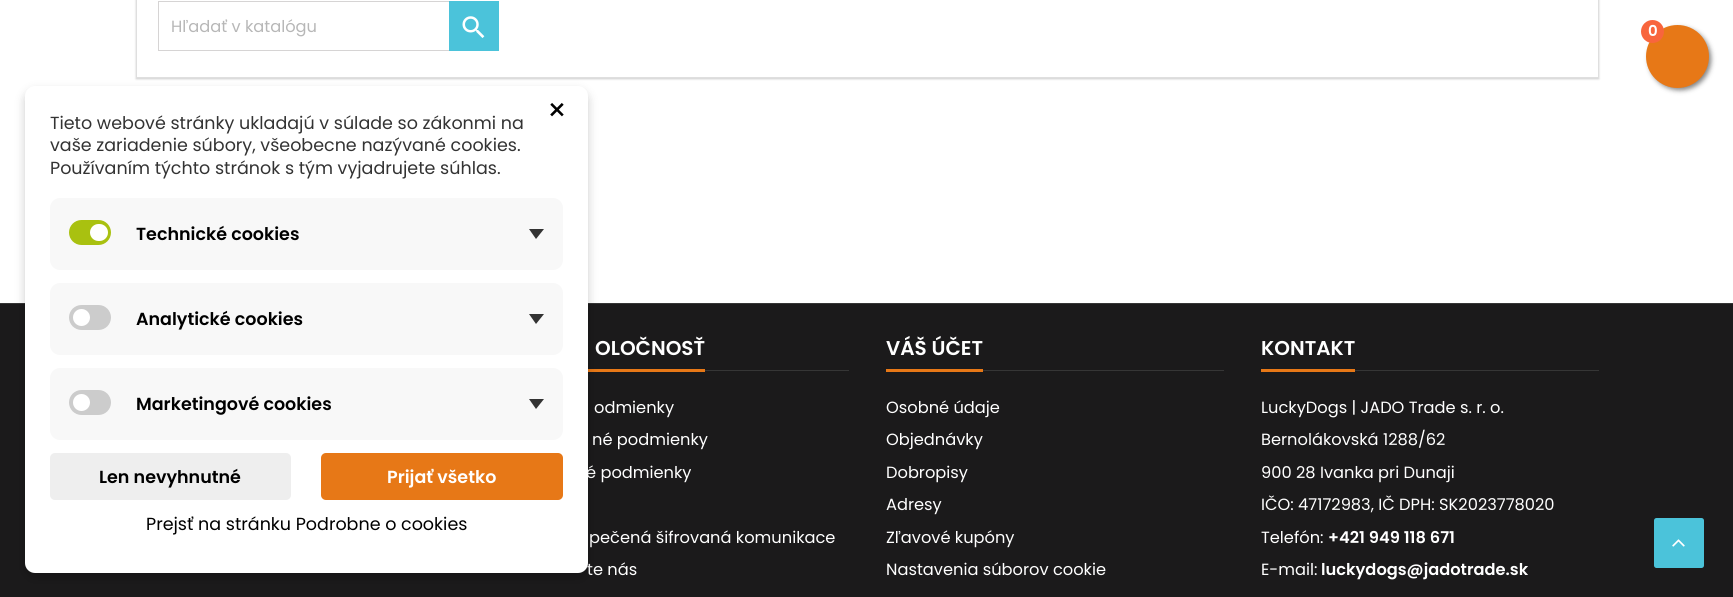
#include <cairo.h>
#include <math.h>
#include <stddef.h>


static void rgb(cairo_t *cr, int r, int g, int b)
{
	cairo_set_source_rgb(cr, r / 255.0, g / 255.0, b / 255.0);
}

static void face(cairo_t *cr, const char *family, double size, int italic, int bold)
{
	cairo_select_font_face(cr, family, italic ? CAIRO_FONT_SLANT_ITALIC : CAIRO_FONT_SLANT_NORMAL,
		bold ? CAIRO_FONT_WEIGHT_BOLD : CAIRO_FONT_WEIGHT_NORMAL);
	cairo_set_font_size(cr, size);
}

static void label(cairo_t *cr, double x, double y, const char *s)
{
	cairo_move_to(cr, x, y);
	cairo_show_text(cr, s);
}

static void rect(cairo_t *cr, double x, double y, double w, double h)
{
	cairo_rectangle(cr, x, y, w, h);
	cairo_fill(cr);
}

static void rrect(cairo_t *cr, double x, double y, double w, double h, double r)
{
	cairo_new_sub_path(cr);
	cairo_arc(cr, x + w - r, y + h - r, r, 0, M_PI / 2);
	cairo_arc(cr, x + r, y + h - r, r, M_PI / 2, M_PI);
	cairo_arc(cr, x + r, y + r, r, M_PI, 1.5 * M_PI);
	cairo_arc(cr, x + w - r, y + r, r, 1.5 * M_PI, 2 * M_PI);
	cairo_close_path(cr);
}

static void soft_shadow(cairo_t *cr, double x, double y, double w, double h, double r, double blur, double alpha)
{
	cairo_push_group_with_content(cr, CAIRO_CONTENT_ALPHA);
	cairo_set_operator(cr, CAIRO_OPERATOR_SOURCE);
	for (int i = 15; i >= -15 && fmin(w, h) + blur * i / 3 > 0; i -= 2) {
		double e = blur * i / 6;
		cairo_set_source_rgba(cr, 0, 0, 0, alpha * erfc((i - 1) / 8.5) / 2);
		rrect(cr, x - e, y - e, w + 2 * e, h + 2 * e, fmax(0, fmin(r + e + blur * .6, fmin(w, h) / 2 + e)));
		cairo_fill(cr);
	}
	cairo_pattern_t *soft = cairo_pop_group(cr);
	cairo_mask(cr, soft);
	cairo_pattern_destroy(soft);
}

static void image(cairo_t *cr, const char *path, double x, double y, double w, double h)
{
	cairo_surface_t *image = cairo_image_surface_create_from_png(path);
	cairo_save(cr);
	cairo_set_source_surface(cr, image, x, y);
	cairo_rectangle(cr, x, y, w, h);
	cairo_fill(cr);
	cairo_restore(cr);
	cairo_surface_destroy(image);
}

static void draw(cairo_t *cr) {
	rgb(cr, 255, 255, 255);
	cairo_paint(cr);
	rgb(cr, 0, 0, 0);
	soft_shadow(cr, 136, -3, 1463, 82, 0, 1, 0.2);
	rgb(cr, 255, 255, 255);
	cairo_rectangle(cr, 136.5, -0.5, 1462, 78);
	cairo_fill_preserve(cr);
	rgb(cr, 223, 223, 223);
	cairo_set_line_width(cr, 1);
	cairo_stroke(cr);
	cairo_rectangle(cr, 158.5, 1.5, 340, 49);
	rgb(cr, 214, 212, 212);
	cairo_stroke(cr);
	face(cr, "Poppins", 16.25, 0, 0);
	rgb(cr, 183, 183, 183);
	label(cr, 171, 32, "Hľadať v katalógu");
	rgb(cr, 75, 195, 218);
	rect(cr, 449, 1, 50, 50);
	image(cr, "image0.png", 462, 16, 23, 22);
	rgb(cr, 0, 0, 0);
	soft_shadow(cr, 1649, 28, 62, 62, 31, 2.5, 0.5);
	rgb(cr, 231, 120, 23);
	cairo_arc(cr, 1677.5, 56.5, 31.5, 0, 2 * M_PI);
	cairo_fill(cr);
	rgb(cr, 248, 101, 61);
	cairo_arc(cr, 1652.5, 31.5, 11.5, 0, 2 * M_PI);
	cairo_fill(cr);
	face(cr, "Poppins SemiBold", 15, 0, 0);
	rgb(cr, 255, 255, 255);
	label(cr, 1648, 36, "0");
	rgb(cr, 27, 26, 27);
	rect(cr, 0, 304, 1733, 293);
	rgb(cr, 54, 54, 54);
	rect(cr, 0, 303, 1733, 1);
	rect(cr, 705, 370, 144, 1);
	rgb(cr, 231, 120, 23);
	rect(cr, 588, 369, 117, 3);
	face(cr, "Poppins SemiBold", 20, 0, 0);
	rgb(cr, 255, 255, 255);
	label(cr, 595, 355, "OLOČNOSŤ");
	face(cr, "Poppins", 16.25, 0, 0);
	label(cr, 594, 413, "odmienky");
	label(cr, 592, 445, "né podmienky");
	label(cr, 586, 478, "é podmienky");
	label(cr, 589, 543, "pečená šifrovaná komunikace");
	label(cr, 587, 575, "te nás");
	rgb(cr, 54, 54, 54);
	rect(cr, 983, 370, 241, 1);
	rgb(cr, 231, 120, 23);
	rect(cr, 886, 369, 97, 3);
	face(cr, "Poppins SemiBold", 20, 0, 0);
	rgb(cr, 255, 255, 255);
	label(cr, 886, 355, "VÁŠ ÚČET");
	face(cr, "Poppins", 16.25, 0, 0);
	label(cr, 886, 413, "Osobné údaje");
	label(cr, 886, 445, "Objednávky");
	label(cr, 886, 478, "Dobropisy");
	label(cr, 886, 510, "Adresy");
	label(cr, 886, 543, "Zľavové kupóny");
	label(cr, 886, 575, "Nastavenia súborov cookie");
	rgb(cr, 54, 54, 54);
	rect(cr, 1355, 370, 244, 1);
	rgb(cr, 231, 120, 23);
	rect(cr, 1261, 369, 94, 3);
	face(cr, "Poppins SemiBold", 20, 0, 0);
	rgb(cr, 255, 255, 255);
	label(cr, 1261, 355, "KONTAKT");
	face(cr, "Poppins", 16.25, 0, 0);
	label(cr, 1261, 413, "LuckyDogs | JADO Trade s. r. o.");
	label(cr, 1261, 445, "Bernolákovská 1288/62");
	label(cr, 1261, 478, "900 28 Ivanka pri Dunaji");
	label(cr, 1261, 510, "IČO: 47172983, IČ DPH: SK2023778020");
	label(cr, 1261, 543, "Telefón:");
	face(cr, "Poppins SemiBold", 16.25, 0, 0);
	label(cr, 1328, 543, "+421 949 118 671");
	face(cr, "Poppins", 16.25, 0, 0);
	label(cr, 1261, 575, "E-mail:");
	face(cr, "Poppins SemiBold", 16.25, 0, 0);
	label(cr, 1321, 575, "luckydogs@jadotrade.sk");
	rgb(cr, 75, 195, 218);
	rrect(cr, 1654, 518, 50, 50, 2.5);
	cairo_fill(cr);
	image(cr, "image1.png", 1672, 539, 13, 8);
	rgb(cr, 0, 0, 0);
	soft_shadow(cr, 25, 91, 563, 487, 10, 5, 0.2);
	rgb(cr, 255, 255, 255);
	rrect(cr, 25, 86, 563, 487, 10);
	cairo_fill(cr);
	face(cr, "Poppins", 31, 0, 0);
	rgb(cr, 0, 0, 0);
	label(cr, 547, 121, "×");
	face(cr, "Poppins", 17.5, 0, 0);
	rgb(cr, 51, 51, 51);
	label(cr, 50, 129, "Tieto webové stránky ukladajú v súlade so zákonmi na");
	label(cr, 50, 151, "vaše zariadenie súbory, všeobecne nazývané cookies.");
	label(cr, 50, 174, "Používaním týchto stránok s tým vyjadrujete súhlas.");
	rgb(cr, 248, 248, 248);
	rrect(cr, 50, 198, 513, 72, 10);
	cairo_fill(cr);
	rgb(cr, 169, 193, 16);
	rrect(cr, 69, 220, 42, 25, 12.5);
	cairo_fill(cr);
	rgb(cr, 255, 255, 255);
	rrect(cr, 90, 224, 18, 17, 8.5);
	cairo_fill(cr);
	face(cr, "Poppins SemiBold", 17.5, 0, 0);
	rgb(cr, 0, 0, 0);
	label(cr, 136, 240, "Technické cookies");
	rgb(cr, 51, 51, 51);
	cairo_new_path(cr);
	cairo_move_to(cr, 529, 229);
	cairo_line_to(cr, 544, 229);
	cairo_line_to(cr, 536, 239);
	cairo_close_path(cr);
	cairo_fill(cr);
	rgb(cr, 248, 248, 248);
	rrect(cr, 50, 283, 513, 72, 10);
	cairo_fill(cr);
	rgb(cr, 204, 204, 204);
	rrect(cr, 69, 305, 42, 25, 12.5);
	cairo_fill(cr);
	rgb(cr, 255, 255, 255);
	cairo_arc(cr, 81.5, 317.5, 8.5, 0, 2 * M_PI);
	cairo_fill(cr);
	rgb(cr, 0, 0, 0);
	label(cr, 136, 325, "Analytické cookies");
	rgb(cr, 51, 51, 51);
	cairo_new_path(cr);
	cairo_move_to(cr, 529, 314);
	cairo_line_to(cr, 544, 314);
	cairo_line_to(cr, 536, 324);
	cairo_close_path(cr);
	cairo_fill(cr);
	rgb(cr, 248, 248, 248);
	rrect(cr, 50, 368, 513, 72, 10);
	cairo_fill(cr);
	rgb(cr, 204, 204, 204);
	rrect(cr, 69, 390, 42, 25, 12.5);
	cairo_fill(cr);
	rgb(cr, 255, 255, 255);
	cairo_arc(cr, 81.5, 402.5, 8.5, 0, 2 * M_PI);
	cairo_fill(cr);
	rgb(cr, 0, 0, 0);
	label(cr, 136, 410, "Marketingové cookies");
	rgb(cr, 51, 51, 51);
	cairo_new_path(cr);
	cairo_move_to(cr, 529, 399);
	cairo_line_to(cr, 544, 399);
	cairo_line_to(cr, 536, 409);
	cairo_close_path(cr);
	cairo_fill(cr);
	rgb(cr, 238, 238, 238);
	rrect(cr, 50, 453, 241, 47, 5);
	cairo_fill(cr);
	rgb(cr, 0, 0, 0);
	label(cr, 99, 483, "Len nevyhnutné");
	rgb(cr, 231, 120, 23);
	rrect(cr, 321, 453, 242, 47, 5);
	cairo_fill(cr);
	rgb(cr, 255, 255, 255);
	label(cr, 387, 483, "Prijať všetko");
	face(cr, "Poppins", 17.5, 0, 0);
	rgb(cr, 0, 0, 0);
	label(cr, 146, 530, "Prejsť na stránku Podrobne o cookies");
}

int main(void) {
	cairo_surface_t *surface = cairo_image_surface_create(CAIRO_FORMAT_RGB24, 1733, 597);
	cairo_t *cr = cairo_create(surface);
	cairo_font_options_t *options = cairo_font_options_create();
	cairo_font_options_set_hint_metrics(options, CAIRO_HINT_METRICS_OFF);
	cairo_font_options_set_hint_style(options, CAIRO_HINT_STYLE_NONE);
	cairo_set_font_options(cr, options);
	cairo_set_miter_limit(cr, 4);
	draw(cr);
	cairo_surface_write_to_png(surface, "render.png");
	cairo_font_options_destroy(options);
	cairo_destroy(cr);
	cairo_surface_destroy(surface);
	return 0;
}
